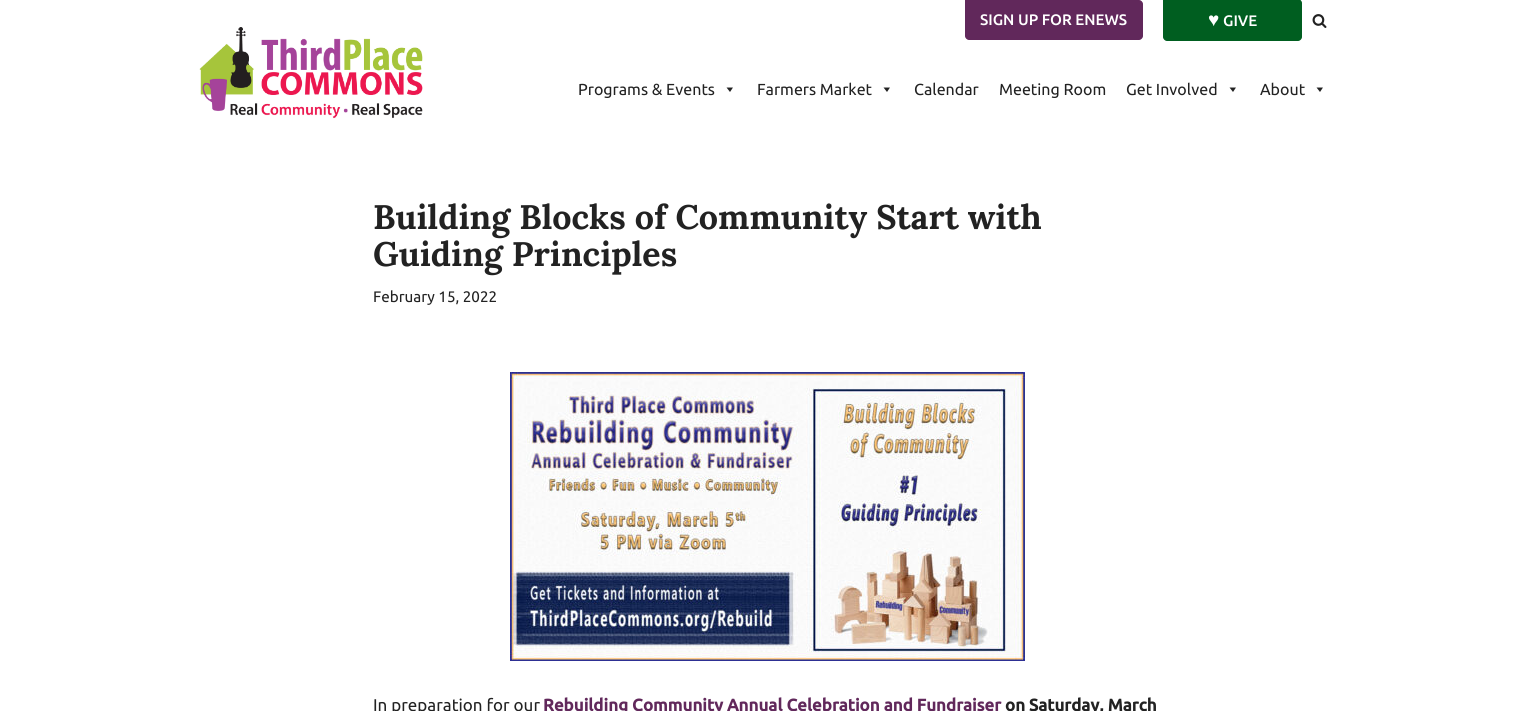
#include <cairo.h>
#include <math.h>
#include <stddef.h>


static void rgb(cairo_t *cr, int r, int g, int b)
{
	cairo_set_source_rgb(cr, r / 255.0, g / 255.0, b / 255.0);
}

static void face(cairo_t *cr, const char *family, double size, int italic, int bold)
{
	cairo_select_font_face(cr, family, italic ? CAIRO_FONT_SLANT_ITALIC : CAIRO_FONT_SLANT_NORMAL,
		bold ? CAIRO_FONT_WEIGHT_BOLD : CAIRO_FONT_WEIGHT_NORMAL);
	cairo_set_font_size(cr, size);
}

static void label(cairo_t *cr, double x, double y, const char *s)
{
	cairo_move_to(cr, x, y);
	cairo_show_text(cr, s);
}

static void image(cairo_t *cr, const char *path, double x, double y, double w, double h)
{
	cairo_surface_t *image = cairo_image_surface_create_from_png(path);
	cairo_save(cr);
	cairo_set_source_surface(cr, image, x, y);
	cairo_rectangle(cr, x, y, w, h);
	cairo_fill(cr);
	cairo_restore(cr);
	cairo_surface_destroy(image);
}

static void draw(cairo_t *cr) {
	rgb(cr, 255, 255, 255);
	cairo_paint(cr);
	rgb(cr, 97, 40, 91);
	cairo_new_path(cr);
	cairo_move_to(cr, 965, 0);
	cairo_line_to(cr, 1139, 0);
	cairo_curve_to(cr, 1141, 0, 1143, 2, 1143, 4);
	cairo_line_to(cr, 1143, 36);
	cairo_curve_to(cr, 1143, 38, 1141, 40, 1139, 40);
	cairo_line_to(cr, 969, 40);
	cairo_curve_to(cr, 967, 40, 965, 38, 965, 36);
	cairo_close_path(cr);
	cairo_fill(cr);
	face(cr, "Ubuntu Medium", 15.25, 0, 0);
	rgb(cr, 255, 255, 255);
	label(cr, 980, 25, "SIGN UP FOR ENEWS");
	rgb(cr, 0, 94, 32);
	cairo_new_path(cr);
	cairo_move_to(cr, 1163, -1);
	cairo_line_to(cr, 1298, -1);
	cairo_curve_to(cr, 1300, -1, 1302, 1, 1302, 3);
	cairo_line_to(cr, 1302, 37);
	cairo_curve_to(cr, 1302, 39, 1300, 41, 1298, 41);
	cairo_line_to(cr, 1167, 41);
	cairo_curve_to(cr, 1165, 41, 1163, 39, 1163, 37);
	cairo_close_path(cr);
	cairo_fill(cr);
	face(cr, "Liberation Sans", 19, 0, 0);
	rgb(cr, 255, 255, 255);
	label(cr, 1208, 26, "♥");
	face(cr, "Ubuntu Medium", 15.25, 0, 0);
	label(cr, 1223, 26, "GIVE");
	image(cr, "image0.png", 1312, 14, 15, 14);
	image(cr, "image1.png", 199, 27, 224, 92);
	face(cr, "Ubuntu", 16, 0, 0);
	rgb(cr, 34, 34, 34);
	label(cr, 578, 95, "Programs & Events");
	cairo_new_path(cr);
	cairo_move_to(cr, 733, 87.5);
	cairo_line_to(cr, 730, 92);
	cairo_line_to(cr, 726.5, 87.5);
	cairo_close_path(cr);
	cairo_fill(cr);
	label(cr, 757, 95, "Farmers Market");
	cairo_new_path(cr);
	cairo_move_to(cr, 890, 87.5);
	cairo_line_to(cr, 887, 92);
	cairo_line_to(cr, 883.5, 87.5);
	cairo_close_path(cr);
	cairo_fill(cr);
	label(cr, 914, 95, "Calendar");
	label(cr, 999, 95, "Meeting Room");
	label(cr, 1126, 95, "Get Involved");
	cairo_new_path(cr);
	cairo_move_to(cr, 1236, 87.5);
	cairo_line_to(cr, 1233, 92);
	cairo_line_to(cr, 1229.5, 87.5);
	cairo_close_path(cr);
	cairo_fill(cr);
	label(cr, 1260, 95, "About");
	cairo_new_path(cr);
	cairo_move_to(cr, 1323, 87.5);
	cairo_line_to(cr, 1320, 92);
	cairo_line_to(cr, 1316.5, 87.5);
	cairo_close_path(cr);
	cairo_fill(cr);
	face(cr, "Lora", 34, 0, 1);
	label(cr, 373, 229, "Building Blocks of Community Start with");
	label(cr, 373, 266, "Guiding Principles");
	face(cr, "Ubuntu", 15.25, 0, 0);
	label(cr, 373, 302, "February 15, 2022");
	image(cr, "image2.png", 510, 372, 515, 289);
	face(cr, "Ubuntu", 17, 0, 0);
	label(cr, 373, 711, "In preparation for our");
	face(cr, "Ubuntu", 17, 0, 1);
	rgb(cr, 97, 40, 91);
	label(cr, 543, 711, "Rebuilding Community Annual Celebration and Fundraiser");
	rgb(cr, 34, 34, 34);
	label(cr, 1005, 711, "on Saturday, March");
}

int main(void) {
	cairo_surface_t *surface = cairo_image_surface_create(CAIRO_FORMAT_RGB24, 1534, 711);
	cairo_t *cr = cairo_create(surface);
	cairo_font_options_t *options = cairo_font_options_create();
	cairo_font_options_set_hint_metrics(options, CAIRO_HINT_METRICS_OFF);
	cairo_font_options_set_hint_style(options, CAIRO_HINT_STYLE_NONE);
	cairo_set_font_options(cr, options);
	cairo_set_miter_limit(cr, 4);
	draw(cr);
	cairo_surface_write_to_png(surface, "render.png");
	cairo_font_options_destroy(options);
	cairo_destroy(cr);
	cairo_surface_destroy(surface);
	return 0;
}
